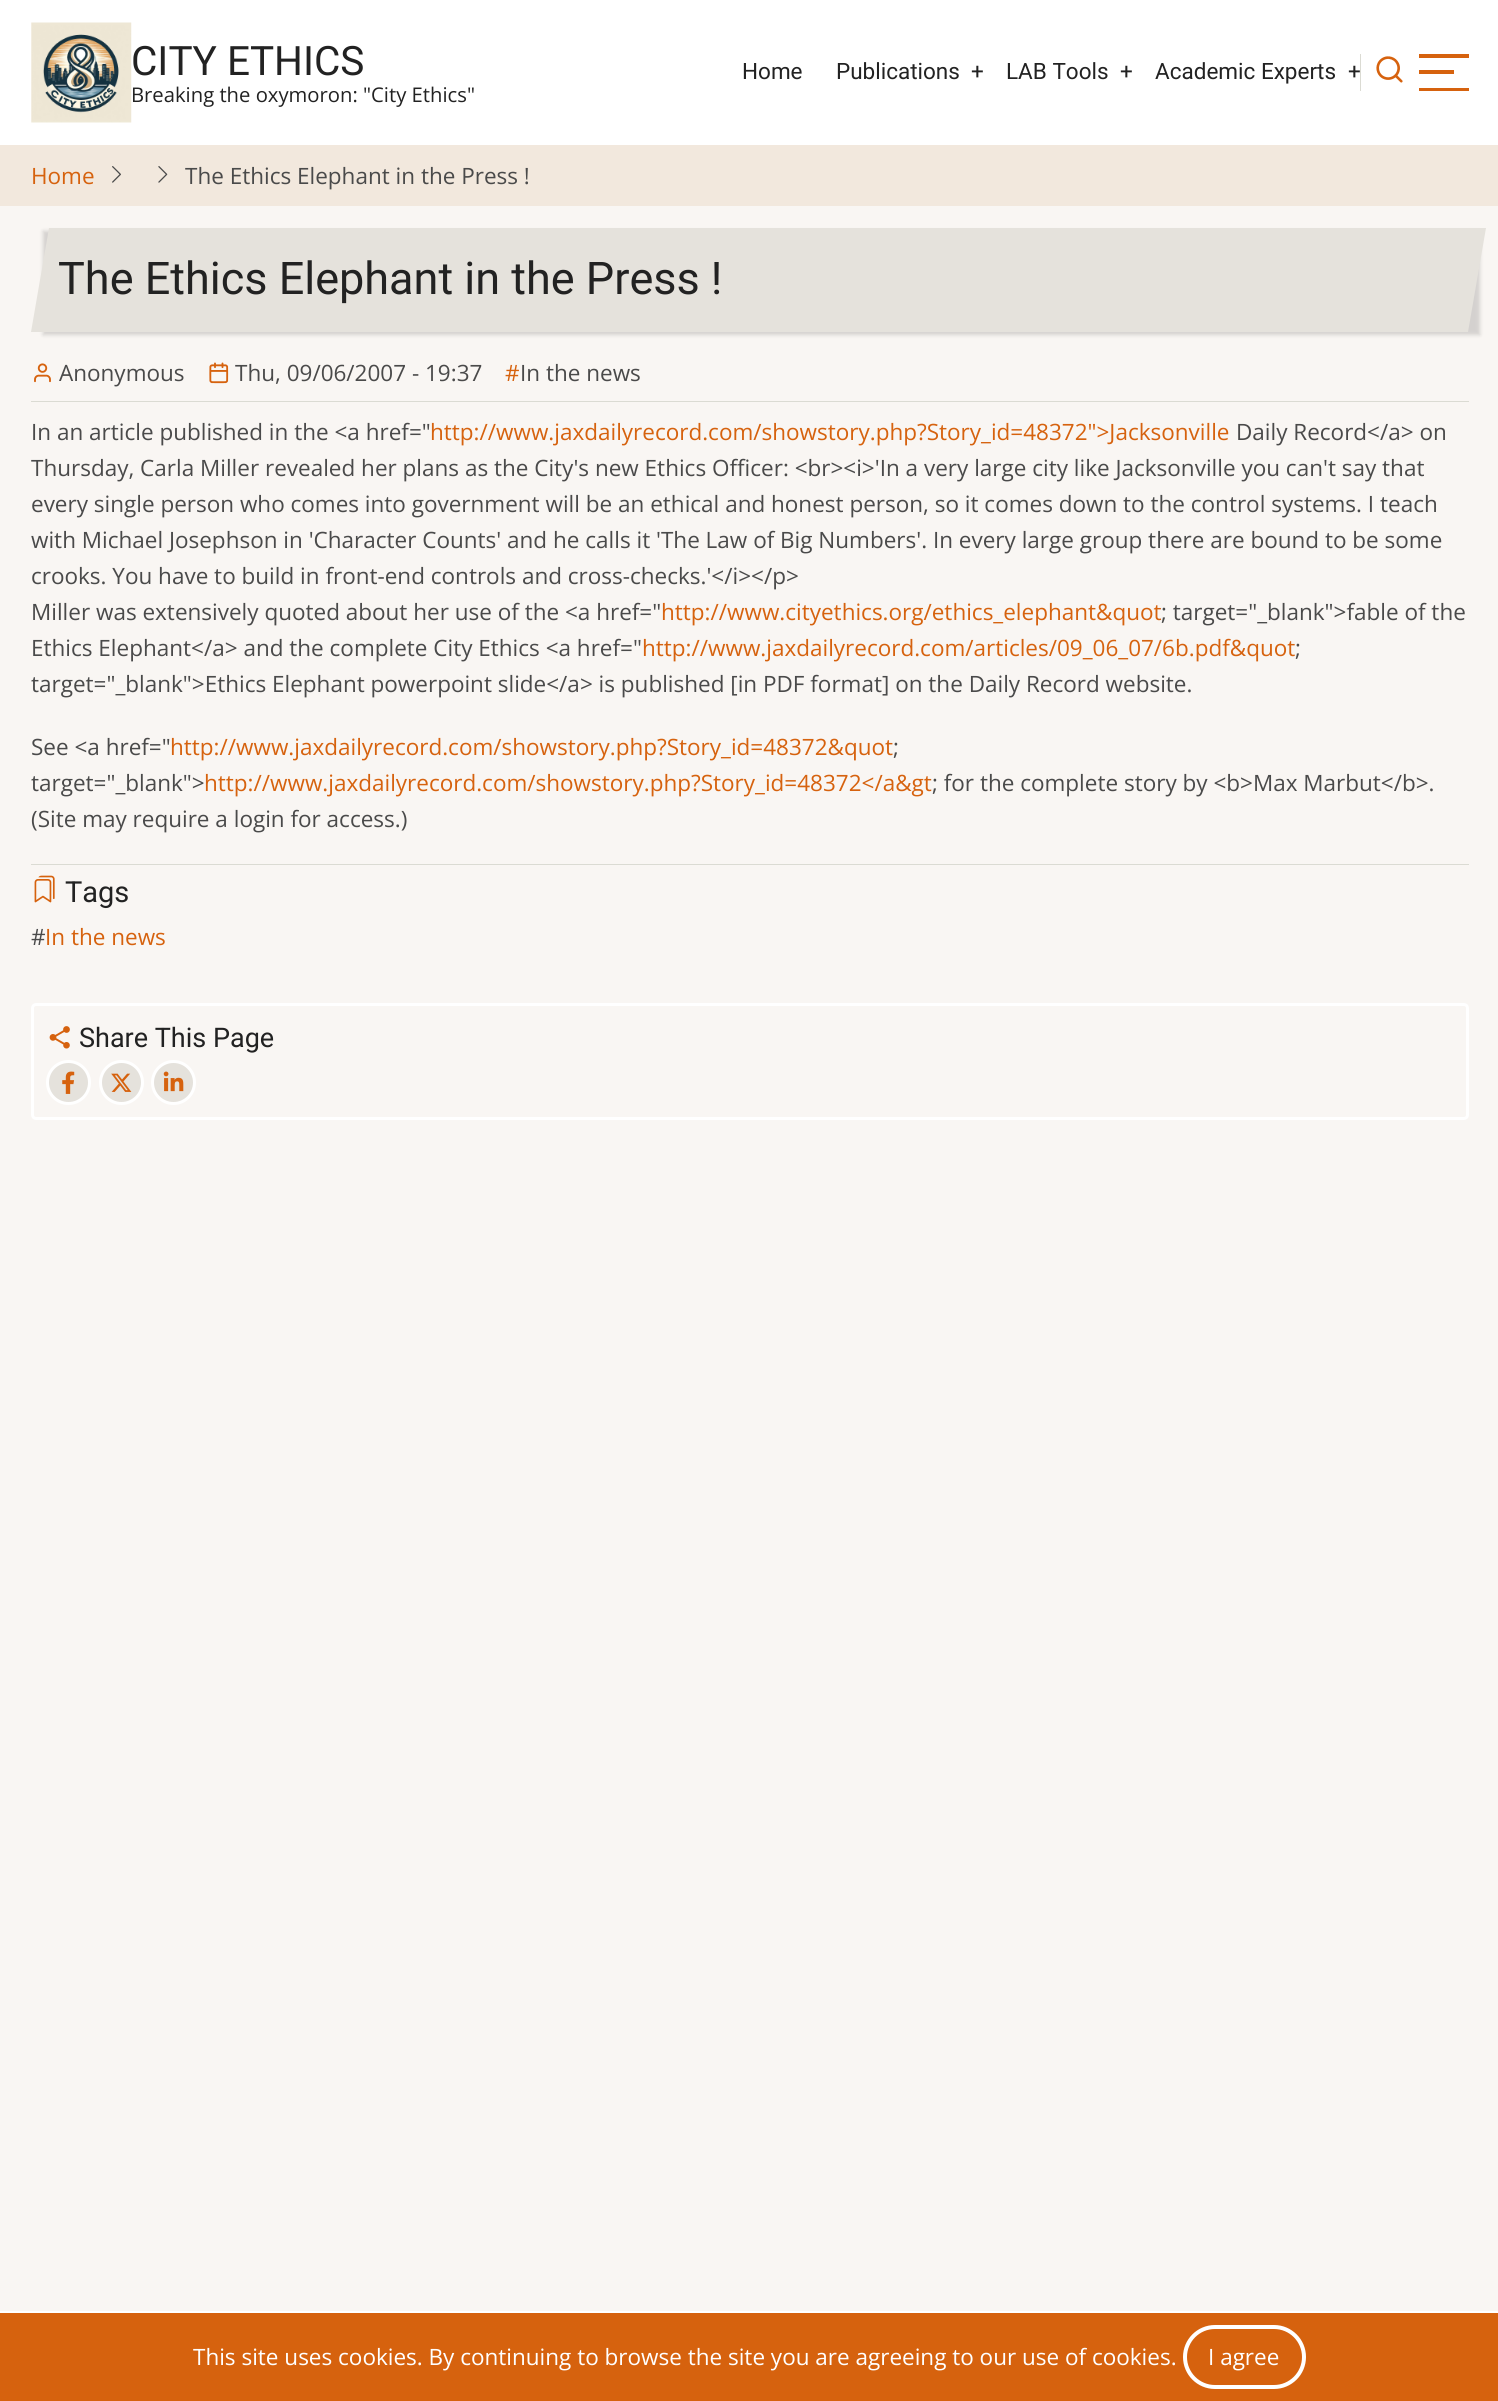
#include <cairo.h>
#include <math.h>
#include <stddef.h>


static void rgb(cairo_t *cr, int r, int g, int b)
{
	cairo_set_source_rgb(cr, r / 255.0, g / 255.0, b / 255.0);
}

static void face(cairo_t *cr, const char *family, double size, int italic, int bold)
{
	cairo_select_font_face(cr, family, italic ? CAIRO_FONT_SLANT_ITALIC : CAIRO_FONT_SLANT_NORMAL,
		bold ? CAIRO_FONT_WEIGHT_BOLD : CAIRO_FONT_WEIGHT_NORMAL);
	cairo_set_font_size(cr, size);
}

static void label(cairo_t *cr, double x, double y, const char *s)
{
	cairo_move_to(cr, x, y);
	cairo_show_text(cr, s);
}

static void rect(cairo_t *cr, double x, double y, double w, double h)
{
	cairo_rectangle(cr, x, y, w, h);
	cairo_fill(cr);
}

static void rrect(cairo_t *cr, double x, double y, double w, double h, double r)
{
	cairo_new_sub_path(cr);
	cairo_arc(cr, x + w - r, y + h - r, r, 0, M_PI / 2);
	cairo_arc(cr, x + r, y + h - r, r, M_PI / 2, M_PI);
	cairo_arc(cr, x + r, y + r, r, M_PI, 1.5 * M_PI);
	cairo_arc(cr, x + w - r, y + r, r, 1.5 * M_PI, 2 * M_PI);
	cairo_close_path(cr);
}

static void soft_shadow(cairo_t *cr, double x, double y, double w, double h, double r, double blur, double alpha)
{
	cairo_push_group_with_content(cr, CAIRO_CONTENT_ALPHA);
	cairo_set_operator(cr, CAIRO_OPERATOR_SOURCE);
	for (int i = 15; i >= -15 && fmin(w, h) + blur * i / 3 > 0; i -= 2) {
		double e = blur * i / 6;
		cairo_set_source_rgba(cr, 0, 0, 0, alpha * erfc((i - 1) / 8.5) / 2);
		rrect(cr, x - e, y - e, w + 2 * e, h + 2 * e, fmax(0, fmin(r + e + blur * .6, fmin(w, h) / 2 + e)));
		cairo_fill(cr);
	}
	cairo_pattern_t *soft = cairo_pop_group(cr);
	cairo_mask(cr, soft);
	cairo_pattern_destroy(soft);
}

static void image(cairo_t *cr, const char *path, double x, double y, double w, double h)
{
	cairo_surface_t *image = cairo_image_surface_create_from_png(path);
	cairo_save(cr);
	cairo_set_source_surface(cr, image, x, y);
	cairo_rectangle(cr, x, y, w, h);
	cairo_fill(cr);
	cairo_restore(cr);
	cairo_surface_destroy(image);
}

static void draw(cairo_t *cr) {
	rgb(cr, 249, 246, 243);
	cairo_paint(cr);
	rgb(cr, 255, 255, 255);
	rect(cr, 0, 0, 1498, 145);
	image(cr, "image0.png", 31, 22, 101, 101);
	face(cr, "Roboto", 40.5, 0, 0);
	rgb(cr, 34, 34, 34);
	label(cr, 131, 75, "CITY ETHICS");
	face(cr, "Open Sans", 20.25, 0, 0);
	label(cr, 131, 102, "Breaking the oxymoron: \"City Ethics\"");
	face(cr, "Roboto", 22.5, 0, 0);
	label(cr, 742, 79, "Home");
	label(cr, 836, 79, "Publications");
	label(cr, 971, 79, "+");
	label(cr, 1006, 79, "LAB Tools");
	label(cr, 1120, 79, "+");
	label(cr, 1155, 79, "Academic Experts");
	label(cr, 1348, 79, "+");
	rgb(cr, 219, 219, 211);
	rect(cr, 1360, 54, 1, 37);
	image(cr, "image1.png", 1376, 56, 27, 27);
	rgb(cr, 214, 98, 14);
	rect(cr, 1419, 54, 50, 4);
	rect(cr, 1419, 70, 35, 4);
	rect(cr, 1419, 88, 50, 3);
	rgb(cr, 242, 232, 221);
	rect(cr, 0, 145, 1498, 61);
	face(cr, "Open Sans", 22.5, 0, 0);
	rgb(cr, 214, 98, 14);
	label(cr, 31, 184, "Home");
	image(cr, "image2.png", 112, 166, 9, 17);
	image(cr, "image3.png", 158, 166, 10, 17);
	rgb(cr, 74, 74, 74);
	label(cr, 185, 184, "The Ethics Elephant in the Press !");
	rgb(cr, 0, 0, 0);
	soft_shadow(cr, 43, 231, 1437, 104, 0, 2, 0.15);
	rgb(cr, 229, 226, 220);
	cairo_new_path(cr);
	cairo_move_to(cr, 49, 228);
	cairo_line_to(cr, 1486, 228);
	cairo_line_to(cr, 1468, 332);
	cairo_line_to(cr, 31, 332);
	cairo_close_path(cr);
	cairo_fill(cr);
	face(cr, "Roboto", 45, 0, 0);
	rgb(cr, 34, 34, 34);
	label(cr, 58, 294, "The Ethics Elephant in the Press !");
	rgb(cr, 219, 219, 211);
	rect(cr, 31, 401, 1438, 1);
	image(cr, "image4.png", 34, 363, 17, 20);
	face(cr, "Open Sans", 22.5, 0, 0);
	rgb(cr, 74, 74, 74);
	label(cr, 59, 381, "Anonymous");
	image(cr, "image5.png", 209, 362, 20, 22);
	label(cr, 235, 381, "Thu, 09/06/2007 - 19:37");
	rgb(cr, 214, 98, 14);
	label(cr, 505, 381, "#");
	rgb(cr, 74, 74, 74);
	label(cr, 520, 381, "In the news");
	label(cr, 31, 440, "In an article published in the <a href=\"");
	rgb(cr, 214, 98, 14);
	label(cr, 430, 440, "http://www.jaxdailyrecord.com/showstory.php?Story_id=48372\">Jacksonville");
	rgb(cr, 74, 74, 74);
	label(cr, 1236, 440, "Daily Record</a> on");
	label(cr, 31, 476, "Thursday, Carla Miller revealed her plans as the City's new Ethics Officer: <br><i>'In a very large city like Jacksonville you can't say that");
	label(cr, 31, 512, "every single person who comes into government will be an ethical and honest person, so it comes down to the control systems. I teach");
	label(cr, 31, 548, "with Michael Josephson in 'Character Counts' and he calls it 'The Law of Big Numbers'. In every large group there are bound to be some");
	label(cr, 31, 584, "crooks. You have to build in front-end controls and cross-checks.'</i></p>");
	label(cr, 31, 620, "Miller was extensively quoted about her use of the <a href=\"");
	rgb(cr, 214, 98, 14);
	label(cr, 661, 620, "http://www.cityethics.org/ethics_elephant&quot");
	rgb(cr, 74, 74, 74);
	label(cr, 1161, 620, "; target=\"_blank\">fable of the");
	label(cr, 31, 656, "Ethics Elephant</a> and the complete City Ethics <a href=\"");
	rgb(cr, 214, 98, 14);
	label(cr, 642, 656, "http://www.jaxdailyrecord.com/articles/09_06_07/6b.pdf&quot");
	rgb(cr, 74, 74, 74);
	label(cr, 1295, 656, ";");
	label(cr, 31, 692, "target=\"_blank\">Ethics Elephant powerpoint slide</a> is published [in PDF format] on the Daily Record website.");
	label(cr, 31, 755, "See <a href=\"");
	rgb(cr, 214, 98, 14);
	label(cr, 170, 755, "http://www.jaxdailyrecord.com/showstory.php?Story_id=48372&quot");
	rgb(cr, 74, 74, 74);
	label(cr, 893, 755, ";");
	label(cr, 31, 791, "target=\"_blank\">");
	rgb(cr, 214, 98, 14);
	label(cr, 204, 791, "http://www.jaxdailyrecord.com/showstory.php?Story_id=48372</a&gt");
	rgb(cr, 74, 74, 74);
	label(cr, 932, 791, "; for the complete story by <b>Max Marbut</b>.");
	label(cr, 31, 827, "(Site may require a login for access.)");
	rgb(cr, 219, 219, 211);
	rect(cr, 31, 864, 1438, 1);
	image(cr, "image6.png", 34, 875, 21, 28);
	face(cr, "Roboto", 29, 0, 0);
	rgb(cr, 34, 34, 34);
	label(cr, 65, 902, "Tags");
	face(cr, "Open Sans", 22.5, 0, 0);
	rgb(cr, 74, 74, 74);
	label(cr, 31, 945, "#");
	rgb(cr, 214, 98, 14);
	label(cr, 45, 945, "In the news");
	rrect(cr, 32.5, 1004.5, 1435, 114, 3.5);
	rgb(cr, 255, 255, 255);
	cairo_set_line_width(cr, 3);
	cairo_stroke(cr);
	image(cr, "image7.png", 49, 1026, 21, 23);
	face(cr, "Roboto", 27, 0, 0);
	rgb(cr, 34, 34, 34);
	label(cr, 79, 1047, "Share This Page");
	rgb(cr, 229, 226, 220);
	cairo_new_path(cr);
	cairo_arc(cr, 68.5, 1082.5, 21, 0, 2 * M_PI);
	cairo_fill_preserve(cr);
	rgb(cr, 255, 255, 255);
	cairo_stroke(cr);
	image(cr, "image8.png", 62, 1071, 13, 23);
	rgb(cr, 229, 226, 220);
	cairo_arc(cr, 121.5, 1082.5, 21, 0, 2 * M_PI);
	cairo_fill_preserve(cr);
	rgb(cr, 255, 255, 255);
	cairo_stroke(cr);
	image(cr, "image9.png", 111, 1073, 21, 19);
	rgb(cr, 229, 226, 220);
	cairo_arc(cr, 173.5, 1082.5, 21, 0, 2 * M_PI);
	cairo_fill_preserve(cr);
	rgb(cr, 255, 255, 255);
	cairo_stroke(cr);
	image(cr, "image10.png", 163, 1071, 21, 21);
	rect(cr, 0, 2311, 1498, 2);
	rgb(cr, 214, 98, 14);
	rect(cr, 0, 2313, 1498, 88);
	face(cr, "Open Sans", 22.5, 0, 0);
	rgb(cr, 255, 255, 255);
	label(cr, 193, 2365, "This site uses cookies. By continuing to browse the site you are agreeing to our use of cookies.");
	rrect(cr, 1185, 2327, 119, 60, 30);
	cairo_set_line_width(cr, 4);
	cairo_stroke(cr);
	label(cr, 1208, 2365, "I agree");
}

int main(void) {
	cairo_surface_t *surface = cairo_image_surface_create(CAIRO_FORMAT_RGB24, 1498, 2401);
	cairo_t *cr = cairo_create(surface);
	cairo_font_options_t *options = cairo_font_options_create();
	cairo_font_options_set_hint_metrics(options, CAIRO_HINT_METRICS_OFF);
	cairo_font_options_set_hint_style(options, CAIRO_HINT_STYLE_NONE);
	cairo_set_font_options(cr, options);
	cairo_set_miter_limit(cr, 4);
	draw(cr);
	cairo_surface_write_to_png(surface, "render.png");
	cairo_font_options_destroy(options);
	cairo_destroy(cr);
	cairo_surface_destroy(surface);
	return 0;
}
